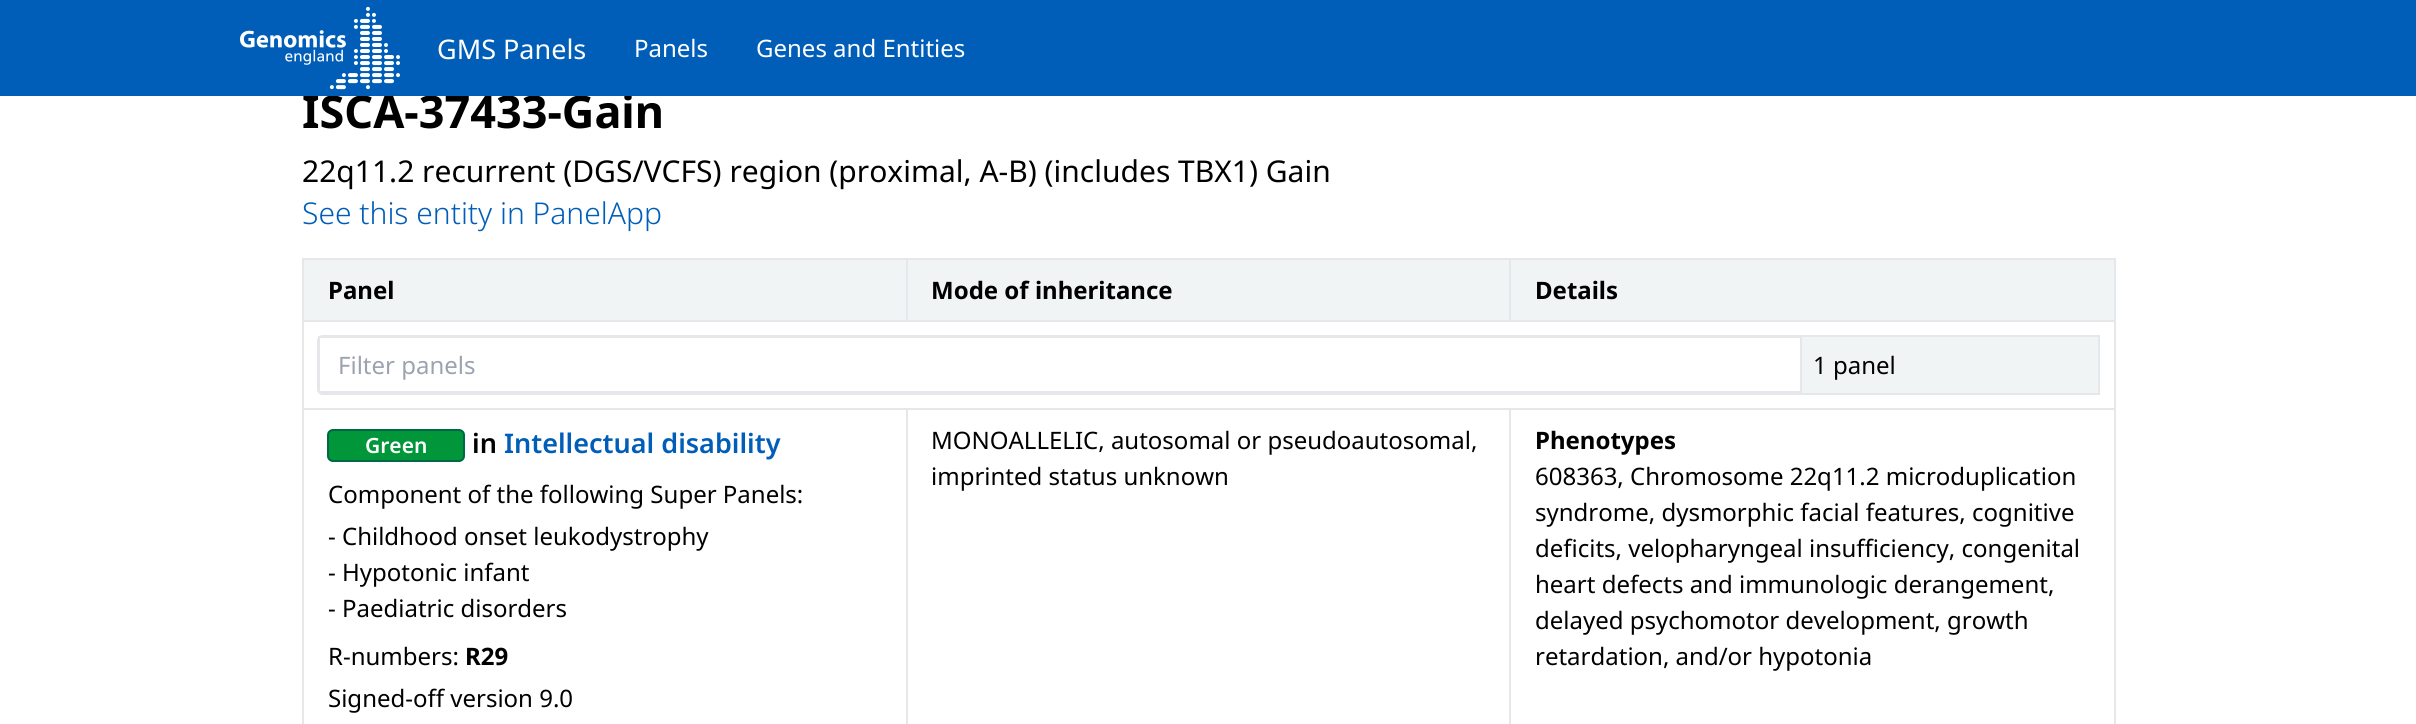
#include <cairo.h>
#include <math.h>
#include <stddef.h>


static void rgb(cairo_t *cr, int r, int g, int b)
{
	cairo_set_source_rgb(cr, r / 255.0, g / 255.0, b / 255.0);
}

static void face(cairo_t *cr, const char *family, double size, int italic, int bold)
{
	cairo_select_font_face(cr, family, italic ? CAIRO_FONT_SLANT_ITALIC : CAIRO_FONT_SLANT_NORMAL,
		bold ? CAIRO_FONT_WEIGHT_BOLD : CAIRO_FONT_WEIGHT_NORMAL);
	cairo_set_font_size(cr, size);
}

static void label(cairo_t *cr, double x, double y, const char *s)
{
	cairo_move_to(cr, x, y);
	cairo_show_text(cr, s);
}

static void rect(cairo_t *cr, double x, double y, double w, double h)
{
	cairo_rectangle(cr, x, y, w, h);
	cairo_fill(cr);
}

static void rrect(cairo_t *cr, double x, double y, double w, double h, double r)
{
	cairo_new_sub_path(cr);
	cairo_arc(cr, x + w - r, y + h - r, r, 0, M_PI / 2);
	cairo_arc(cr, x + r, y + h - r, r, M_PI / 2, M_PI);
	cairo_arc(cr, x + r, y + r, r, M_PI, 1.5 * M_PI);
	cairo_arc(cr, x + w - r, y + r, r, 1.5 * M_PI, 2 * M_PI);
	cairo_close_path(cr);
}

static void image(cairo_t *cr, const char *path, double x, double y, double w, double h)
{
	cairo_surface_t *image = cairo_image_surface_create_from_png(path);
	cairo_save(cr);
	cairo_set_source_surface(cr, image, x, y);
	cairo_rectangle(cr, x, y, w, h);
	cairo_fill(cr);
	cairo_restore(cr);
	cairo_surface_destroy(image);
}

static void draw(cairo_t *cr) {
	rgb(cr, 255, 255, 255);
	cairo_paint(cr);
	face(cr, "Noto Sans", 45, 0, 1);
	rgb(cr, 0, 0, 0);
	label(cr, 302, 128, "ISCA-37433-Gain");
	rgb(cr, 0, 94, 184);
	rect(cr, 0, 0, 2416, 96);
	image(cr, "image0.png", 240, 6, 160, 84);
	face(cr, "Noto Sans", 27, 0, 0);
	rgb(cr, 255, 255, 255);
	label(cr, 437, 59, "GMS Panels");
	face(cr, "Noto Sans", 24, 0, 0);
	label(cr, 634, 57, "Panels");
	label(cr, 756, 57, "Genes and Entities");
	face(cr, "Noto Sans", 30, 0, 0);
	rgb(cr, 0, 0, 0);
	label(cr, 302, 182, "22q11.2 recurrent (DGS/VCFS) region (proximal, A-B) (includes TBX1) Gain");
	face(cr, "Noto Sans Light", 30, 0, 0);
	rgb(cr, 0, 94, 184);
	label(cr, 302, 224, "See this entity in PanelApp");
	rgb(cr, 229, 231, 235);
	rect(cr, 302, 258, 1813, 2);
	rect(cr, 2114, 258, 2, 466);
	rect(cr, 302, 258, 2, 466);
	rgb(cr, 240, 244, 245);
	rect(cr, 304, 260, 1810, 60);
	face(cr, "Noto Sans", 24, 0, 1);
	rgb(cr, 0, 0, 0);
	label(cr, 328, 299, "Panel");
	rgb(cr, 229, 231, 235);
	rect(cr, 302, 320, 1813, 2);
	rect(cr, 906, 258, 2, 63);
	rgb(cr, 0, 0, 0);
	label(cr, 931, 299, "Mode of inheritance");
	rgb(cr, 229, 231, 235);
	rect(cr, 1509, 258, 2, 63);
	rgb(cr, 0, 0, 0);
	label(cr, 1535, 299, "Details");
	rgb(cr, 240, 244, 245);
	cairo_new_path(cr);
	cairo_move_to(cr, 323, 336);
	cairo_line_to(cr, 2099, 336);
	cairo_line_to(cr, 2099, 394);
	cairo_line_to(cr, 323, 394);
	cairo_curve_to(cr, 320, 394, 318, 392, 318, 389);
	cairo_line_to(cr, 318, 341);
	cairo_curve_to(cr, 318, 338, 320, 336, 323, 336);
	cairo_close_path(cr);
	cairo_fill_preserve(cr);
	rgb(cr, 229, 231, 235);
	cairo_stroke(cr);
	rgb(cr, 255, 255, 255);
	cairo_rectangle(cr, 319, 337, 1482, 55);
	cairo_fill_preserve(cr);
	rgb(cr, 229, 231, 235);
	cairo_stroke(cr);
	face(cr, "Noto Sans", 24, 0, 0);
	rgb(cr, 156, 163, 175);
	label(cr, 338, 374, "Filter panels");
	rgb(cr, 0, 0, 0);
	label(cr, 1813, 374, "1 panel");
	rgb(cr, 229, 231, 235);
	rect(cr, 1509, 408, 606, 2);
	rect(cr, 1509, 408, 2, 316);
	rect(cr, 906, 408, 605, 2);
	rect(cr, 906, 408, 2, 316);
	rect(cr, 302, 408, 606, 2);
	rgb(cr, 0, 150, 57);
	rrect(cr, 328, 430, 136, 31, 5);
	cairo_fill_preserve(cr);
	rgb(cr, 0, 103, 71);
	cairo_stroke(cr);
	face(cr, "Noto Sans SemiBold", 21, 0, 0);
	rgb(cr, 255, 255, 255);
	label(cr, 365, 453, "Green");
	face(cr, "Noto Sans SemiBold", 27, 0, 0);
	rgb(cr, 0, 0, 0);
	label(cr, 472, 453, "in");
	rgb(cr, 0, 94, 184);
	label(cr, 504, 453, "Intellectual disability");
	face(cr, "Noto Sans", 24, 0, 0);
	rgb(cr, 0, 0, 0);
	label(cr, 328, 503, "Component of the following Super Panels:");
	label(cr, 328, 545, "- Childhood onset leukodystrophy");
	label(cr, 328, 581, "- Hypotonic infant");
	label(cr, 328, 617, "- Paediatric disorders");
	label(cr, 328, 665, "R-numbers:");
	face(cr, "Noto Sans", 24, 0, 1);
	label(cr, 465, 665, "R29");
	face(cr, "Noto Sans", 24, 0, 0);
	label(cr, 328, 707, "Signed-off version 9.0");
	label(cr, 931, 449, "MONOALLELIC, autosomal or pseudoautosomal,");
	label(cr, 931, 485, "imprinted status unknown");
	face(cr, "Noto Sans", 24, 0, 1);
	label(cr, 1535, 449, "Phenotypes");
	face(cr, "Noto Sans", 24, 0, 0);
	label(cr, 1535, 485, "608363, Chromosome 22q11.2 microduplication");
	label(cr, 1535, 521, "syndrome, dysmorphic facial features, cognitive");
	label(cr, 1535, 557, "deficits, velopharyngeal insufficiency, congenital");
	label(cr, 1535, 593, "heart defects and immunologic derangement,");
	label(cr, 1535, 629, "delayed psychomotor development, growth");
	label(cr, 1535, 665, "retardation, and/or hypotonia");
}

int main(void) {
	cairo_surface_t *surface = cairo_image_surface_create(CAIRO_FORMAT_RGB24, 2416, 724);
	cairo_t *cr = cairo_create(surface);
	cairo_font_options_t *options = cairo_font_options_create();
	cairo_font_options_set_hint_metrics(options, CAIRO_HINT_METRICS_OFF);
	cairo_font_options_set_hint_style(options, CAIRO_HINT_STYLE_NONE);
	cairo_set_font_options(cr, options);
	cairo_set_miter_limit(cr, 4);
	draw(cr);
	cairo_surface_write_to_png(surface, "render.png");
	cairo_font_options_destroy(options);
	cairo_destroy(cr);
	cairo_surface_destroy(surface);
	return 0;
}
